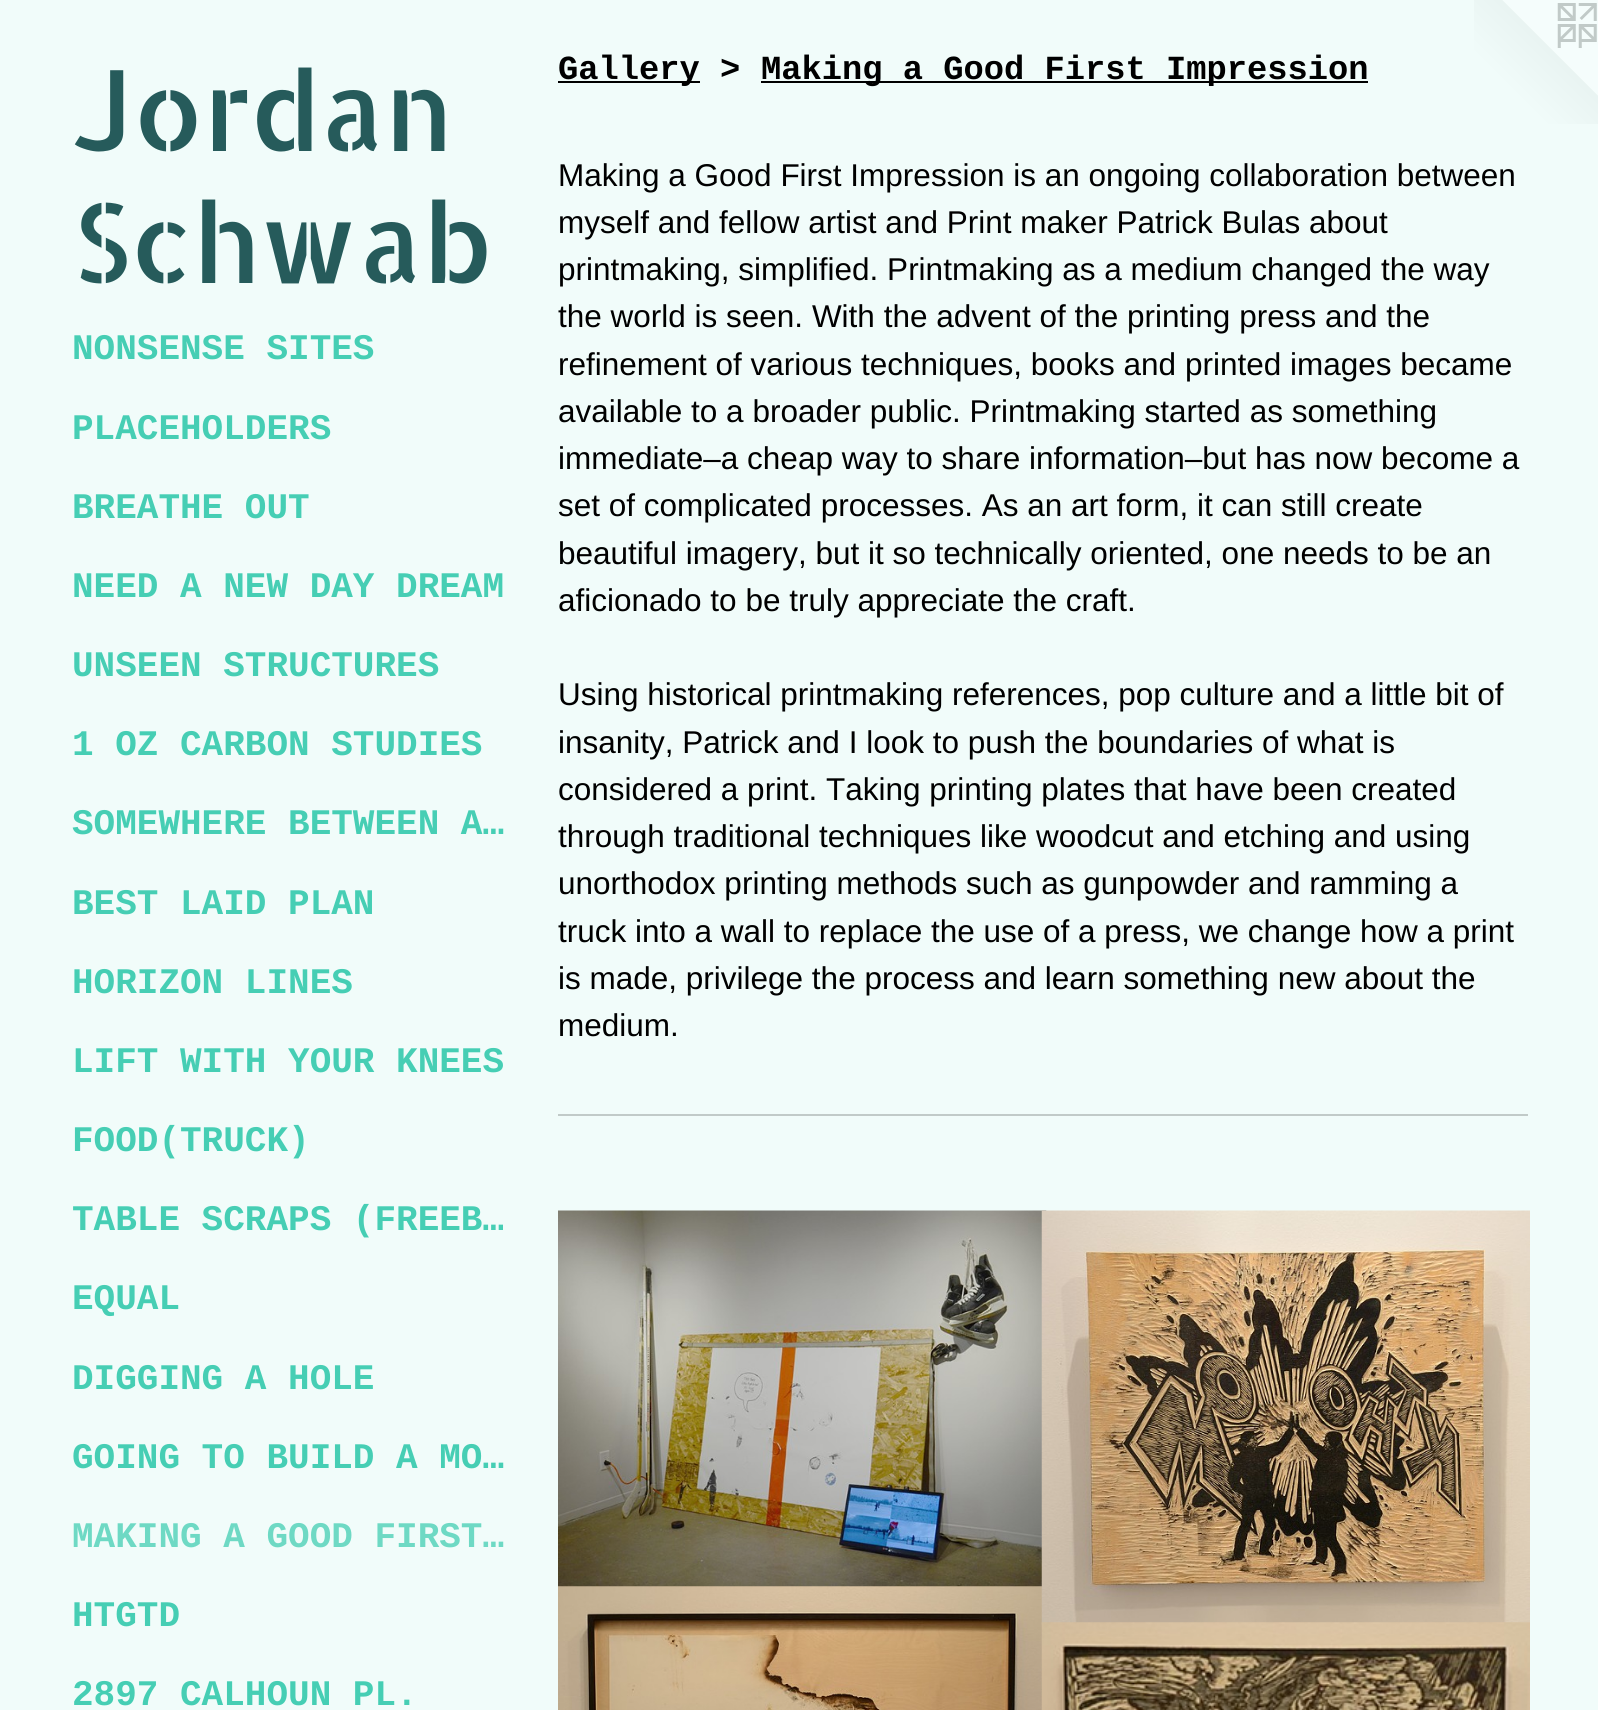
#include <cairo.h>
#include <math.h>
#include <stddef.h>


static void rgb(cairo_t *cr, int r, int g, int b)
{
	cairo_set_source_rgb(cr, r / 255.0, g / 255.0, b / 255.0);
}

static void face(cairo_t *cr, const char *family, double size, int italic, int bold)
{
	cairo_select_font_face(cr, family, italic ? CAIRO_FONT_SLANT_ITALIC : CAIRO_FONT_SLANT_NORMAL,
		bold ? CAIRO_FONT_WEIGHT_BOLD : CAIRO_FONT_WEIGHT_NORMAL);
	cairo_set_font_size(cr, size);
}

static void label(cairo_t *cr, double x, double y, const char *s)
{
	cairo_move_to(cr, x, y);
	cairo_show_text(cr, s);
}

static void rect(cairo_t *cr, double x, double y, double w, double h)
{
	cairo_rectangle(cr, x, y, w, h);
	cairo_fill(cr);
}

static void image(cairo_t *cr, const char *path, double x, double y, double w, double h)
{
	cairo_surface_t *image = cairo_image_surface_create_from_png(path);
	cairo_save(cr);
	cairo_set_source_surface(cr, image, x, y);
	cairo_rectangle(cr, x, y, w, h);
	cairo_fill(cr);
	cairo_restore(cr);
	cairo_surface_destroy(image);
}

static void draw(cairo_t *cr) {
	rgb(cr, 241, 252, 250);
	cairo_paint(cr);
	face(cr, "Allerta Stencil", 110, 0, 0);
	rgb(cr, 38, 91, 91);
	label(cr, 72, 151, "Jordan");
	label(cr, 72, 283, "Schwab");
	face(cr, "Liberation Mono", 36, 0, 1);
	rgb(cr, 70, 206, 180);
	label(cr, 72, 359, "NONSENSE SITES");
	label(cr, 72, 439, "PLACEHOLDERS");
	label(cr, 72, 518, "BREATHE OUT");
	label(cr, 72, 597, "NEED A NEW DAY DREAM");
	label(cr, 72, 676, "UNSEEN STRUCTURES");
	label(cr, 72, 755, "1 OZ CARBON STUDIES");
	label(cr, 72, 834, "SOMEWHERE BETWEEN A…");
	label(cr, 72, 914, "BEST LAID PLAN");
	label(cr, 72, 993, "HORIZON LINES");
	label(cr, 72, 1072, "LIFT WITH YOUR KNEES");
	label(cr, 72, 1151, "FOOD(TRUCK)");
	label(cr, 72, 1230, "TABLE SCRAPS (FREEB…");
	label(cr, 72, 1309, "EQUAL");
	label(cr, 72, 1389, "DIGGING A HOLE");
	label(cr, 72, 1468, "GOING TO BUILD A MO…");
	rgb(cr, 110, 217, 196);
	label(cr, 72, 1547, "MAKING A GOOD FIRST…");
	rgb(cr, 70, 206, 180);
	label(cr, 72, 1626, "HTGTD");
	label(cr, 72, 1705, "2897 CALHOUN PL.");
	rgb(cr, 0, 0, 0);
	rect(cr, 558, 81, 142, 2);
	face(cr, "Liberation Mono", 33.75, 0, 1);
	label(cr, 558, 79, "Gallery >");
	rect(cr, 761, 81, 607, 2);
	label(cr, 761, 79, "Making a Good First Impression");
	rgb(cr, 193, 202, 200);
	rect(cr, 558, 1114, 970, 2);
	face(cr, "Liberation Sans", 31.5, 0, 0);
	rgb(cr, 0, 0, 0);
	label(cr, 558, 186, "Making a Good First Impression is an ongoing collaboration between");
	label(cr, 558, 233, "myself and fellow artist and Print maker Patrick Bulas about");
	label(cr, 558, 280, "printmaking, simplified. Printmaking as a medium changed the way");
	label(cr, 558, 327, "the world is seen. With the advent of the printing press and the");
	label(cr, 558, 375, "refinement of various techniques, books and printed images became");
	label(cr, 558, 422, "available to a broader public. Printmaking started as something");
	label(cr, 558, 469, "immediate–a cheap way to share information–but has now become a");
	label(cr, 558, 516, "set of complicated processes. As an art form, it can still create");
	label(cr, 558, 564, "beautiful imagery, but it so technically oriented, one needs to be an");
	label(cr, 558, 611, "aficionado to be truly appreciate the craft.");
	label(cr, 558, 705, "Using historical printmaking references, pop culture and a little bit of");
	label(cr, 558, 753, "insanity, Patrick and I look to push the boundaries of what is");
	label(cr, 558, 800, "considered a print. Taking printing plates that have been created");
	label(cr, 558, 847, "through traditional techniques like woodcut and etching and using");
	label(cr, 558, 894, "unorthodox printing methods such as gunpowder and ramming a");
	label(cr, 558, 942, "truck into a wall to replace the use of a press, we change how a print");
	label(cr, 558, 989, "is made, privilege the process and learn something new about the");
	label(cr, 558, 1036, "medium.");
	image(cr, "image0.png", 558, 1210, 489, 377);
	image(cr, "image2.png", 558, 1586, 484, 124);
	image(cr, "image1.png", 1041, 1210, 489, 415);
	image(cr, "image3.png", 1041, 1622, 489, 88);
	image(cr, "image4.png", 1474, 0, 124, 124);
}

int main(void) {
	cairo_surface_t *surface = cairo_image_surface_create(CAIRO_FORMAT_RGB24, 1598, 1710);
	cairo_t *cr = cairo_create(surface);
	cairo_font_options_t *options = cairo_font_options_create();
	cairo_font_options_set_hint_metrics(options, CAIRO_HINT_METRICS_OFF);
	cairo_font_options_set_hint_style(options, CAIRO_HINT_STYLE_NONE);
	cairo_set_font_options(cr, options);
	cairo_set_miter_limit(cr, 4);
	draw(cr);
	cairo_surface_write_to_png(surface, "render.png");
	cairo_font_options_destroy(options);
	cairo_destroy(cr);
	cairo_surface_destroy(surface);
	return 0;
}
